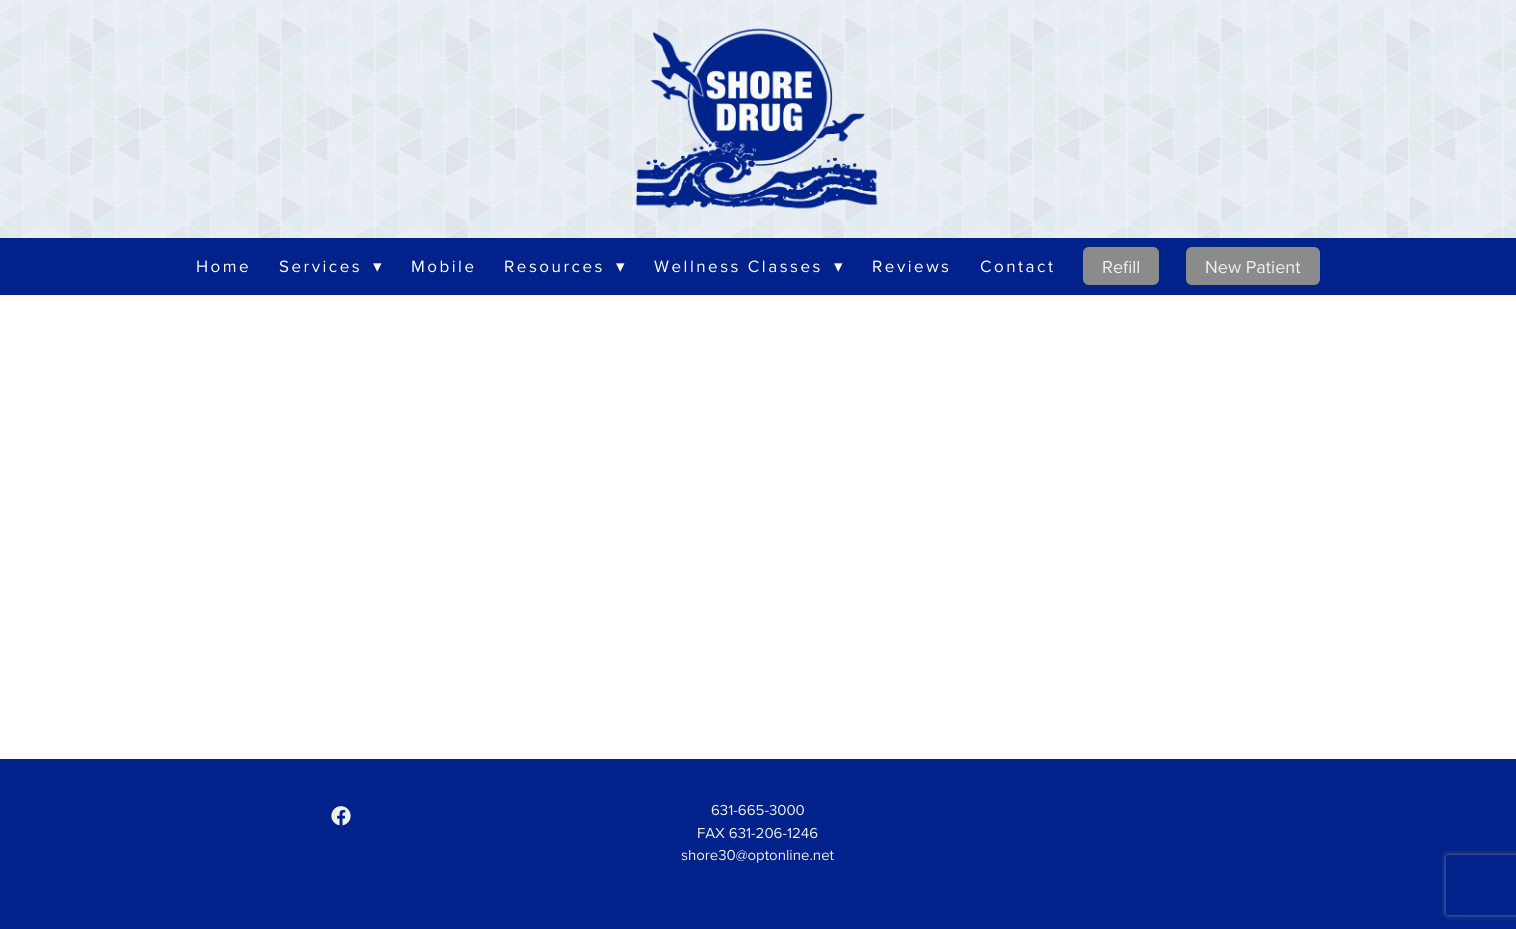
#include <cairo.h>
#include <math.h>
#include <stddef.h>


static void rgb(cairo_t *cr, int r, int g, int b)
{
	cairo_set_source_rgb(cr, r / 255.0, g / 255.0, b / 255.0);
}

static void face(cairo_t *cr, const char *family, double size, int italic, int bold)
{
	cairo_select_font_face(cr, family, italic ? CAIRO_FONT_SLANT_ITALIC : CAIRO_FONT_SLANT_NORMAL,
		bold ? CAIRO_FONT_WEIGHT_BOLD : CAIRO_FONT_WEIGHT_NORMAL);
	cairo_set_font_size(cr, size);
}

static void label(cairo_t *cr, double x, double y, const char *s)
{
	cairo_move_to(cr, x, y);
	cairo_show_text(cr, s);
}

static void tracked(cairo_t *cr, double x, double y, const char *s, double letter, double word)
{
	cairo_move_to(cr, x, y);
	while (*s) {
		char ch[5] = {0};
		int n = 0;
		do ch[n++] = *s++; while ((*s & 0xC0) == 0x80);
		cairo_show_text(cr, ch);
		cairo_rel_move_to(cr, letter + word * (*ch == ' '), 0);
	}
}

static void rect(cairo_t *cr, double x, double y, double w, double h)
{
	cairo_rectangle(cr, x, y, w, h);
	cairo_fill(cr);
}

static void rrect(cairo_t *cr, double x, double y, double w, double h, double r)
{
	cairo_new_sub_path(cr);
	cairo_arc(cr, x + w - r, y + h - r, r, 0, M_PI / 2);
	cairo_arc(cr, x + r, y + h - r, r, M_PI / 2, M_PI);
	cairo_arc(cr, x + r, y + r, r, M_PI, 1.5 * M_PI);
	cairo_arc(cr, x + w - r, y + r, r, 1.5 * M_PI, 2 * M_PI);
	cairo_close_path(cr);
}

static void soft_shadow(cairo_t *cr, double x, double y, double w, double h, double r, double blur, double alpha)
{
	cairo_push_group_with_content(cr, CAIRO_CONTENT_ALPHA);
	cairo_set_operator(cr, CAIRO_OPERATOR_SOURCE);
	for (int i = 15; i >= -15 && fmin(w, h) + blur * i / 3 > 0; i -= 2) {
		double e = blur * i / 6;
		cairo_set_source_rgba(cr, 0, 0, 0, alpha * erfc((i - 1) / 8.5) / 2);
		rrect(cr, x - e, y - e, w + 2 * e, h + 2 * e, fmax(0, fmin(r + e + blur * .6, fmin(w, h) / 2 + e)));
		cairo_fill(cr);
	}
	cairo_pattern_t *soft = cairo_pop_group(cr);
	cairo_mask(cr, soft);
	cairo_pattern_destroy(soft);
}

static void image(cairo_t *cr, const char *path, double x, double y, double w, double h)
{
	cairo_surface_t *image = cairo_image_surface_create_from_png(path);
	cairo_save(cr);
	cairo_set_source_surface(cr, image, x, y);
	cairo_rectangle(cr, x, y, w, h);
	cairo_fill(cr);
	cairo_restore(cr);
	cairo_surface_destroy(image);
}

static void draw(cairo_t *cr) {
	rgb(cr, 255, 255, 255);
	cairo_paint(cr);
	image(cr, "image0.png", 0, 0, 1516, 238);
	image(cr, "image1.png", 635, 28, 243, 181);
	rgb(cr, 0, 34, 138);
	rect(cr, 0, 238, 1516, 57);
	face(cr, "Proxima Nova", 17, 0, 0);
	rgb(cr, 255, 255, 255);
	tracked(cr, 196, 272, "Home", 2.5, 0);
	tracked(cr, 279, 272, "Services", 2.5, 0);
	face(cr, "DejaVu Sans", 17, 0, 0);
	tracked(cr, 373, 272, "▾", 2.5, 0);
	face(cr, "Proxima Nova", 17, 0, 0);
	tracked(cr, 411, 272, "Mobile", 2.5, 0);
	tracked(cr, 504, 272, "Resources", 2.5, 0);
	face(cr, "DejaVu Sans", 17, 0, 0);
	tracked(cr, 616, 272, "▾", 2.5, 0);
	face(cr, "Proxima Nova", 17, 0, 0);
	tracked(cr, 654, 272, "Wellness Classes", 2.5, 0);
	face(cr, "DejaVu Sans", 17, 0, 0);
	tracked(cr, 834, 272, "▾", 2.5, 0);
	face(cr, "Proxima Nova", 17, 0, 0);
	tracked(cr, 872, 272, "Reviews", 2.5, 0);
	tracked(cr, 980, 272, "Contact", 2.5, 0);
	rgb(cr, 139, 139, 139);
	rrect(cr, 1083.5, 247.5, 75, 37, 5.5);
	cairo_fill_preserve(cr);
	cairo_set_line_width(cr, 1);
	cairo_stroke(cr);
	face(cr, "Proxima Nova", 18, 0, 0);
	rgb(cr, 240, 240, 240);
	label(cr, 1102, 273, "Refill");
	rgb(cr, 139, 139, 139);
	rrect(cr, 1186.5, 247.5, 133, 37, 5.5);
	cairo_fill_preserve(cr);
	cairo_stroke(cr);
	rgb(cr, 240, 240, 240);
	label(cr, 1205, 273, "New Patient");
	rgb(cr, 0, 34, 138);
	rect(cr, 0, 759, 1516, 170);
	image(cr, "image2.png", 331, 806, 20, 20);
	face(cr, "Proxima Nova", 15, 0, 0);
	rgb(cr, 240, 240, 240);
	label(cr, 711, 815, "631-665-3000");
	label(cr, 697, 838, "FAX 631-206-1246");
	label(cr, 681, 860, "shore30@optonline.net");
	cairo_save(cr);
	cairo_set_fill_rule(cr, CAIRO_FILL_RULE_EVEN_ODD);
	cairo_new_path(cr);
	cairo_move_to(cr, 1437, 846);
	cairo_line_to(cr, 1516, 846);
	cairo_line_to(cr, 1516, 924);
	cairo_line_to(cr, 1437, 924);
	cairo_close_path(cr);
	cairo_move_to(cr, 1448, 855);
	cairo_line_to(cr, 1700, 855);
	cairo_curve_to(cr, 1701, 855, 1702, 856, 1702, 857);
	cairo_line_to(cr, 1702, 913);
	cairo_curve_to(cr, 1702, 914, 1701, 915, 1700, 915);
	cairo_line_to(cr, 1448, 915);
	cairo_curve_to(cr, 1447, 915, 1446, 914, 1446, 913);
	cairo_line_to(cr, 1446, 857);
	cairo_curve_to(cr, 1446, 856, 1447, 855, 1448, 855);
	cairo_close_path(cr);
	cairo_clip(cr);
	rgb(cr, 128, 128, 128);
	soft_shadow(cr, 1446, 855, 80, 60, 2, 2.5, 1);
	cairo_restore(cr);
}

int main(void) {
	cairo_surface_t *surface = cairo_image_surface_create(CAIRO_FORMAT_RGB24, 1516, 929);
	cairo_t *cr = cairo_create(surface);
	cairo_font_options_t *options = cairo_font_options_create();
	cairo_font_options_set_hint_metrics(options, CAIRO_HINT_METRICS_OFF);
	cairo_font_options_set_hint_style(options, CAIRO_HINT_STYLE_NONE);
	cairo_set_font_options(cr, options);
	cairo_set_miter_limit(cr, 4);
	draw(cr);
	cairo_surface_write_to_png(surface, "render.png");
	cairo_font_options_destroy(options);
	cairo_destroy(cr);
	cairo_surface_destroy(surface);
	return 0;
}
